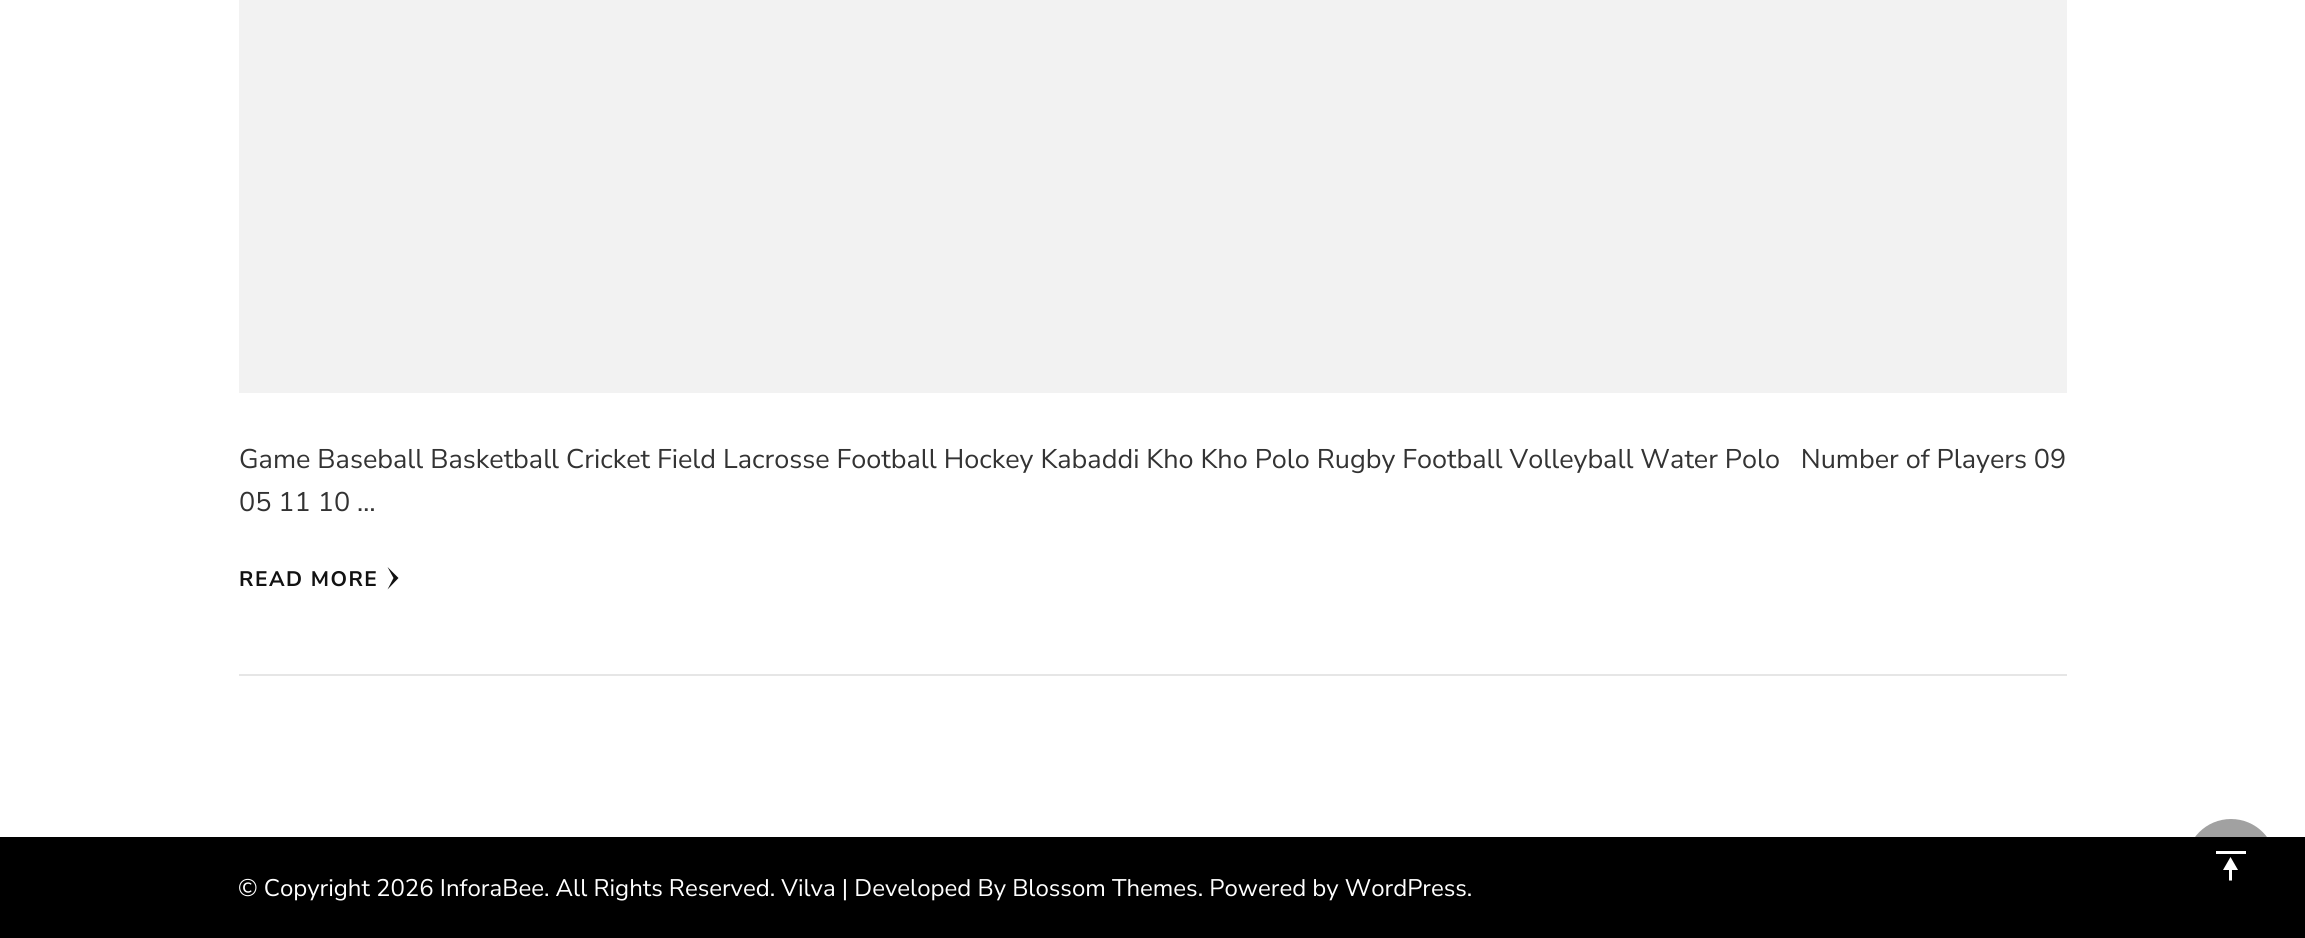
#include <cairo.h>
#include <math.h>
#include <stddef.h>


static void rgb(cairo_t *cr, int r, int g, int b)
{
	cairo_set_source_rgb(cr, r / 255.0, g / 255.0, b / 255.0);
}

static void face(cairo_t *cr, const char *family, double size, int italic, int bold)
{
	cairo_select_font_face(cr, family, italic ? CAIRO_FONT_SLANT_ITALIC : CAIRO_FONT_SLANT_NORMAL,
		bold ? CAIRO_FONT_WEIGHT_BOLD : CAIRO_FONT_WEIGHT_NORMAL);
	cairo_set_font_size(cr, size);
}

static void label(cairo_t *cr, double x, double y, const char *s)
{
	cairo_move_to(cr, x, y);
	cairo_show_text(cr, s);
}

static void tracked(cairo_t *cr, double x, double y, const char *s, double letter, double word)
{
	cairo_move_to(cr, x, y);
	while (*s) {
		char ch[5] = {0};
		int n = 0;
		do ch[n++] = *s++; while ((*s & 0xC0) == 0x80);
		cairo_show_text(cr, ch);
		cairo_rel_move_to(cr, letter + word * (*ch == ' '), 0);
	}
}

static void rect(cairo_t *cr, double x, double y, double w, double h)
{
	cairo_rectangle(cr, x, y, w, h);
	cairo_fill(cr);
}

static void draw(cairo_t *cr) {
	rgb(cr, 255, 255, 255);
	cairo_paint(cr);
	rgb(cr, 230, 230, 230);
	rect(cr, 239, 674, 1828, 2);
	rgb(cr, 242, 242, 242);
	rect(cr, 239, 0, 1828, 393);
	face(cr, "Nunito Sans", 27, 0, 0);
	rgb(cr, 51, 51, 51);
	label(cr, 239, 468, "Game Baseball Basketball Cricket Field Lacrosse Football Hockey Kabaddi Kho Kho Polo Rugby Football Volleyball Water Polo   Number of Players 09");
	label(cr, 239, 511, "05 11 10 …");
	face(cr, "Nunito Sans", 21, 0, 1);
	rgb(cr, 18, 18, 18);
	tracked(cr, 239, 586, "READ MORE", 1.5, 0);
	cairo_new_path(cr);
	cairo_move_to(cr, 398.5, 578);
	cairo_line_to(cr, 387.5, 589.5);
	cairo_line_to(cr, 393.5, 578);
	cairo_line_to(cr, 387.5, 567);
	cairo_close_path(cr);
	cairo_fill(cr);
	rgb(cr, 0, 0, 0);
	rect(cr, 0, 837, 2305, 101);
	face(cr, "Nunito Sans", 24, 0, 0);
	rgb(cr, 255, 255, 255);
	label(cr, 238, 896, "© Copyright 2026 InforaBee. All Rights Reserved. Vilva | Developed By Blossom Themes. Powered by WordPress.");
	cairo_set_source_rgba(cr, 0, 0, 0, 0.37);
	cairo_new_path(cr);
	cairo_arc(cr, 2231, 864, 45, 0, 2 * M_PI);
	cairo_fill(cr);
	rgb(cr, 255, 255, 255);
	rect(cr, 2216, 851, 30, 3);
	cairo_new_path(cr);
	cairo_move_to(cr, 2238, 870);
	cairo_line_to(cr, 2230.5, 857);
	cairo_line_to(cr, 2223, 870);
	cairo_line_to(cr, 2229, 870);
	cairo_line_to(cr, 2229, 880.5);
	cairo_line_to(cr, 2232, 880.5);
	cairo_line_to(cr, 2232, 870);
	cairo_close_path(cr);
	cairo_fill(cr);
}

int main(void) {
	cairo_surface_t *surface = cairo_image_surface_create(CAIRO_FORMAT_RGB24, 2305, 938);
	cairo_t *cr = cairo_create(surface);
	cairo_font_options_t *options = cairo_font_options_create();
	cairo_font_options_set_hint_metrics(options, CAIRO_HINT_METRICS_OFF);
	cairo_font_options_set_hint_style(options, CAIRO_HINT_STYLE_NONE);
	cairo_set_font_options(cr, options);
	cairo_set_miter_limit(cr, 4);
	draw(cr);
	cairo_surface_write_to_png(surface, "render.png");
	cairo_font_options_destroy(options);
	cairo_destroy(cr);
	cairo_surface_destroy(surface);
	return 0;
}
